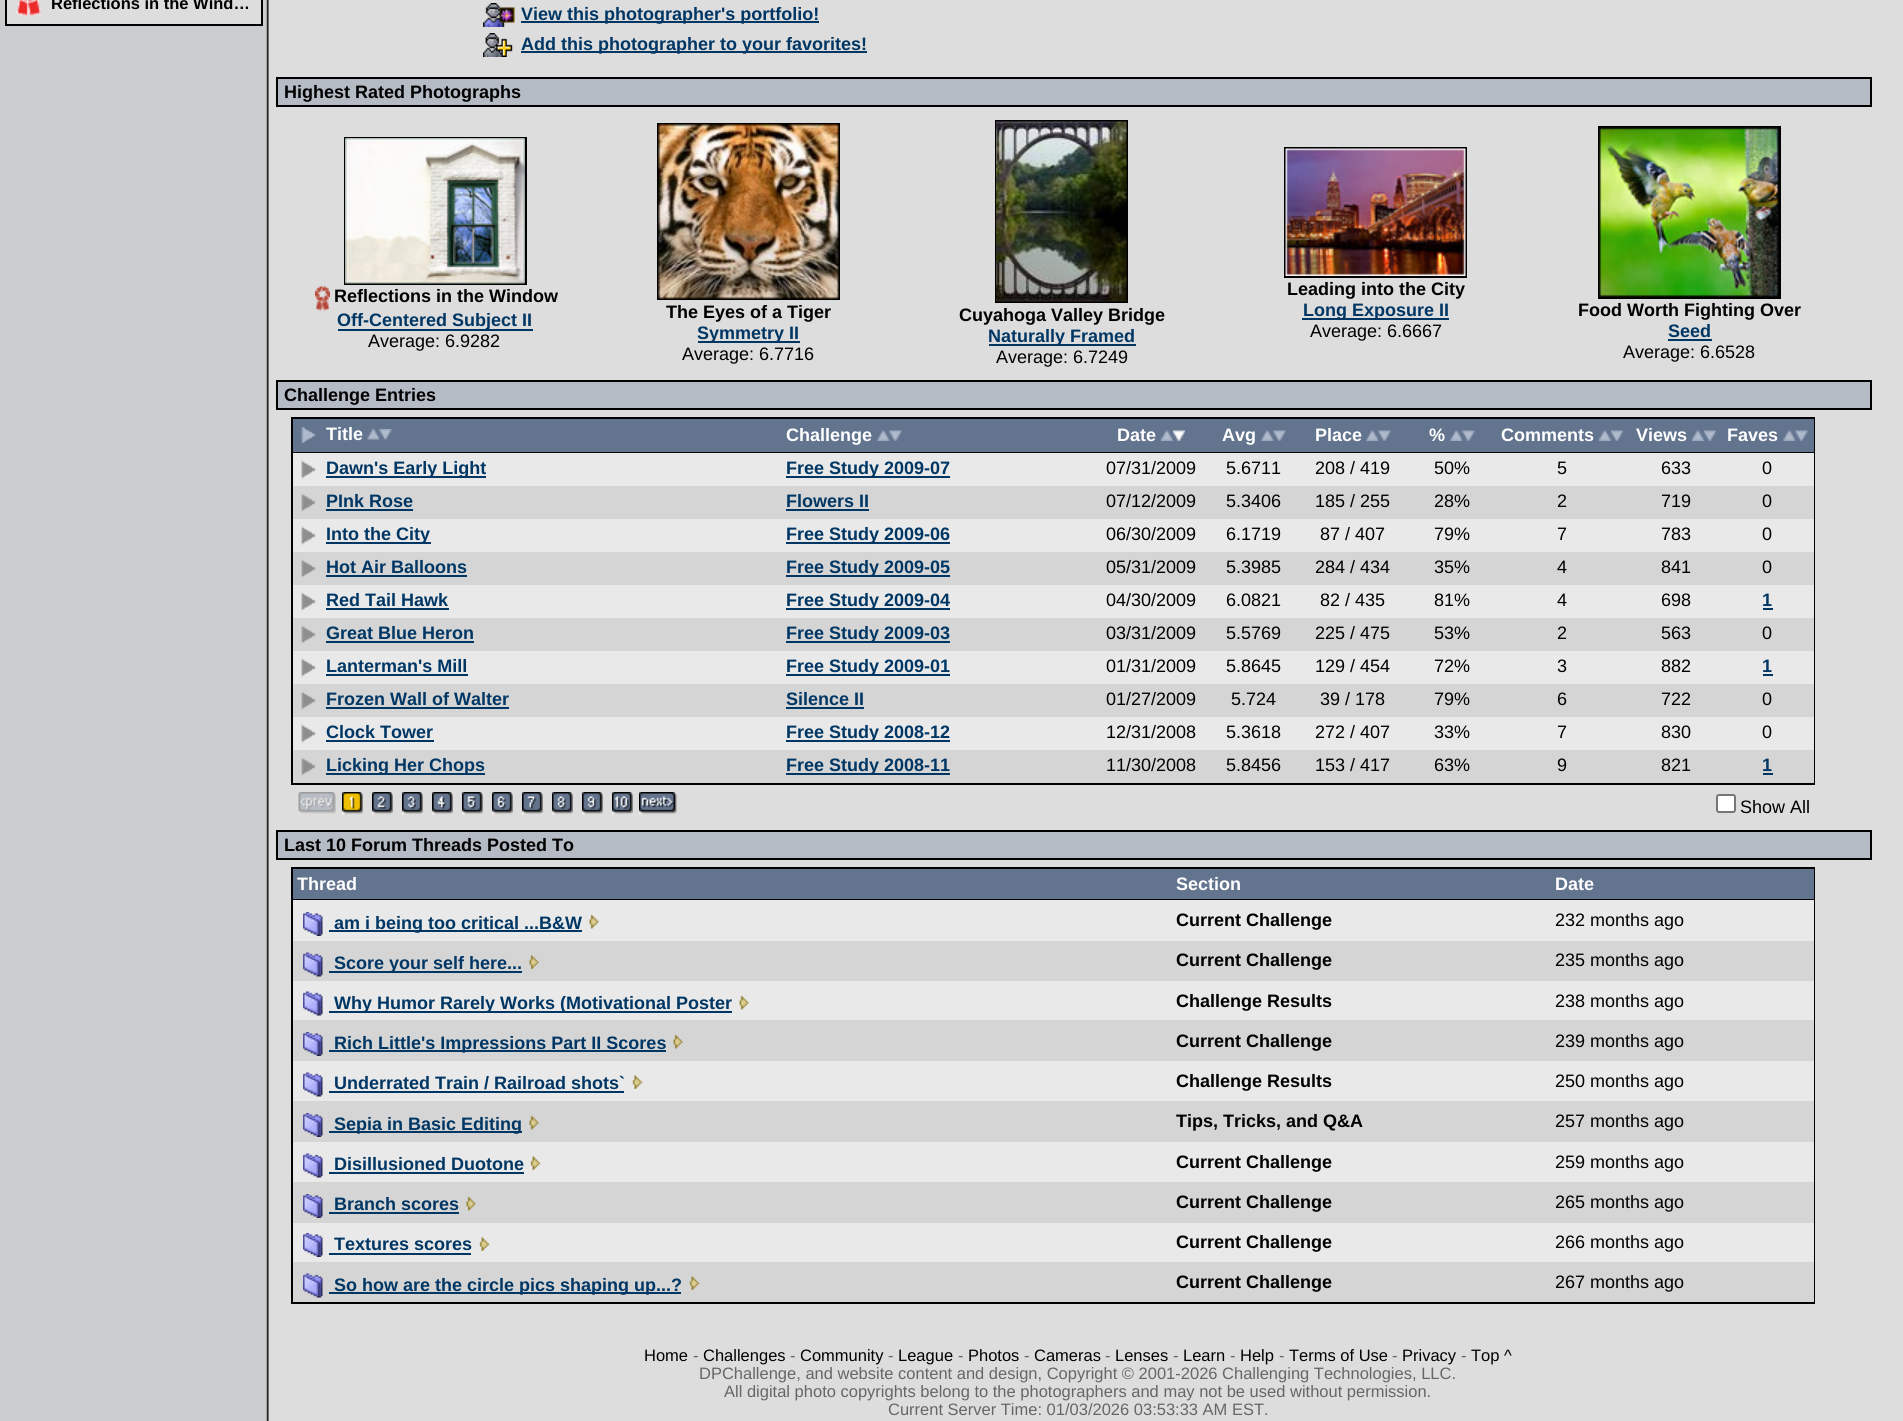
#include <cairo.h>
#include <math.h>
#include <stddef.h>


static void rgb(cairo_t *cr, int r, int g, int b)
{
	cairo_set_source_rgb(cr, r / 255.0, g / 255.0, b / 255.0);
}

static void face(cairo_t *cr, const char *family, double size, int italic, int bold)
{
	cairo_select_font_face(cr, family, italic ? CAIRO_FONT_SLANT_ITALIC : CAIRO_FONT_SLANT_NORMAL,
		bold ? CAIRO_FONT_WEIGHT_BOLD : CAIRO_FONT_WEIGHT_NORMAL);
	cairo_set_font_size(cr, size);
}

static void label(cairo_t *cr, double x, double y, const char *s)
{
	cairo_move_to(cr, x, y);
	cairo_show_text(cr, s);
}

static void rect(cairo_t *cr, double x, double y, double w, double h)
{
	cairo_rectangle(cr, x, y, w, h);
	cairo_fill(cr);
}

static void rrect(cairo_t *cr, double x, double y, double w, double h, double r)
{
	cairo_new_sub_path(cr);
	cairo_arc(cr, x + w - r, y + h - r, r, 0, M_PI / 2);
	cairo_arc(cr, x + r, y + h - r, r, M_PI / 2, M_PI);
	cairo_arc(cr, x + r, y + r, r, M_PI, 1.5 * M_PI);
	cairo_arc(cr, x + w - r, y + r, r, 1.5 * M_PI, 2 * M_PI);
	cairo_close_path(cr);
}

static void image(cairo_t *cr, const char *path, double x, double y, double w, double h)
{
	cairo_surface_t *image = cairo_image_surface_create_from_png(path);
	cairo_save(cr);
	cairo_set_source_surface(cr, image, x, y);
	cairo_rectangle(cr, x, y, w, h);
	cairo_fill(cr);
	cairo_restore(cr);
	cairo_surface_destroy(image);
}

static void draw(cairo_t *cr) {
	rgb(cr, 221, 221, 221);
	cairo_paint(cr);
	image(cr, "image0.png", 0, 0, 269, 1421);
	rgb(cr, 221, 221, 221);
	cairo_rectangle(cr, 6, -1, 256, 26);
	cairo_fill_preserve(cr);
	rgb(cr, 0, 0, 0);
	cairo_stroke(cr);
	image(cr, "image1.png", 16, 0, 25, 17);
	face(cr, "Liberation Sans", 16.5, 0, 1);
	label(cr, 51, 9, "Reflections in the Wind…");
	image(cr, "image2.png", 483, 3, 32, 24);
	rgb(cr, 0, 54, 100);
	rect(cr, 521, 21, 298, 2);
	face(cr, "Liberation Sans", 18, 0, 1);
	label(cr, 521, 20, "View this photographer's portfolio!");
	image(cr, "image3.png", 483, 33, 30, 24);
	rect(cr, 521, 51, 346, 2);
	label(cr, 521, 50, "Add this photographer to your favorites!");
	rgb(cr, 181, 187, 197);
	cairo_rectangle(cr, 277, 78, 1594, 28);
	cairo_fill_preserve(cr);
	rgb(cr, 0, 0, 0);
	cairo_stroke(cr);
	label(cr, 284, 98, "Highest Rated Photographs");
	cairo_rectangle(cr, 345, 138, 181, 146);
	cairo_stroke(cr);
	image(cr, "image4.png", 345, 138, 180, 146);
	image(cr, "image5.png", 315, 286, 15, 25);
	label(cr, 334, 302, "Reflections in the Window");
	rgb(cr, 0, 54, 100);
	rect(cr, 338, 329, 195, 2);
	label(cr, 337, 326, "Off-Centered Subject II");
	face(cr, "Liberation Sans", 18, 0, 0);
	rgb(cr, 0, 0, 0);
	label(cr, 368, 347, "Average: 6.9282");
	cairo_rectangle(cr, 658, 124, 181, 175);
	cairo_stroke(cr);
	image(cr, "image6.png", 658, 124, 181, 175);
	face(cr, "Liberation Sans", 18, 0, 1);
	label(cr, 666, 318, "The Eyes of a Tiger");
	rgb(cr, 0, 54, 100);
	rect(cr, 698, 341, 102, 2);
	label(cr, 697, 339, "Symmetry II");
	face(cr, "Liberation Sans", 18, 0, 0);
	rgb(cr, 0, 0, 0);
	label(cr, 682, 360, "Average: 6.7716");
	cairo_rectangle(cr, 996, 121, 131, 181);
	cairo_stroke(cr);
	image(cr, "image7.png", 996, 121, 131, 181);
	face(cr, "Liberation Sans", 18, 0, 1);
	label(cr, 959, 321, "Cuyahoga Valley Bridge");
	rgb(cr, 0, 54, 100);
	rect(cr, 989, 344, 147, 2);
	label(cr, 988, 342, "Naturally Framed");
	face(cr, "Liberation Sans", 18, 0, 0);
	rgb(cr, 0, 0, 0);
	label(cr, 996, 363, "Average: 6.7249");
	cairo_rectangle(cr, 1285, 148, 181, 129);
	cairo_stroke(cr);
	image(cr, "image8.png", 1285, 148, 181, 128);
	face(cr, "Liberation Sans", 18, 0, 1);
	label(cr, 1287, 295, "Leading into the City");
	rgb(cr, 0, 54, 100);
	rect(cr, 1302, 318, 147, 2);
	label(cr, 1303, 316, "Long Exposure II");
	face(cr, "Liberation Sans", 18, 0, 0);
	rgb(cr, 0, 0, 0);
	label(cr, 1310, 337, "Average: 6.6667");
	cairo_rectangle(cr, 1599, 127, 181, 171);
	cairo_stroke(cr);
	image(cr, "image9.png", 1599, 127, 180, 170);
	face(cr, "Liberation Sans", 18, 0, 1);
	label(cr, 1578, 316, "Food Worth Fighting Over");
	rgb(cr, 0, 54, 100);
	label(cr, 1668, 337, "Seed");
	rect(cr, 1668, 339, 44, 2);
	face(cr, "Liberation Sans", 18, 0, 0);
	rgb(cr, 0, 0, 0);
	label(cr, 1623, 358, "Average: 6.6528");
	rgb(cr, 181, 187, 197);
	cairo_rectangle(cr, 277, 381, 1594, 28);
	cairo_fill_preserve(cr);
	rgb(cr, 0, 0, 0);
	cairo_stroke(cr);
	face(cr, "Liberation Sans", 18, 0, 1);
	label(cr, 284, 401, "Challenge Entries");
	cairo_rectangle(cr, 292, 418, 1522, 366);
	cairo_stroke(cr);
	rgb(cr, 99, 116, 143);
	rect(cr, 293, 419, 1521, 33);
	rgb(cr, 0, 0, 0);
	rect(cr, 293, 452, 1521, 1);
	image(cr, "image10.png", 301, 426, 15, 18);
	rgb(cr, 255, 255, 255);
	label(cr, 326, 440, "Title");
	image(cr, "image11.png", 367, 429, 13, 11);
	image(cr, "image12.png", 379, 429, 13, 11);
	label(cr, 786, 441, "Challenge");
	image(cr, "image13.png", 877, 430, 13, 11);
	image(cr, "image14.png", 889, 430, 13, 11);
	label(cr, 1117, 441, "Date");
	image(cr, "image15.png", 1161, 430, 12, 11);
	image(cr, "image16.png", 1173, 430, 12, 11);
	label(cr, 1222, 441, "Avg");
	image(cr, "image13.png", 1261, 430, 13, 11);
	image(cr, "image17.png", 1273, 430, 13, 11);
	label(cr, 1315, 441, "Place");
	image(cr, "image18.png", 1366, 430, 13, 11);
	image(cr, "image19.png", 1378, 430, 13, 11);
	label(cr, 1429, 441, "%");
	image(cr, "image18.png", 1450, 430, 13, 11);
	image(cr, "image19.png", 1462, 430, 13, 11);
	label(cr, 1501, 441, "Comments");
	image(cr, "image20.png", 1599, 430, 12, 11);
	image(cr, "image21.png", 1611, 430, 12, 11);
	label(cr, 1636, 441, "Views");
	image(cr, "image20.png", 1692, 430, 12, 11);
	image(cr, "image21.png", 1704, 430, 12, 11);
	label(cr, 1727, 441, "Faves");
	image(cr, "image13.png", 1783, 430, 13, 11);
	image(cr, "image14.png", 1795, 430, 13, 11);
	rgb(cr, 233, 233, 233);
	rect(cr, 293, 453, 1521, 33);
	image(cr, "image22.png", 301, 460, 15, 19);
	rgb(cr, 0, 54, 100);
	rect(cr, 326, 476, 160, 2);
	label(cr, 326, 474, "Dawn's Early Light");
	rect(cr, 786, 476, 164, 2);
	label(cr, 786, 474, "Free Study 2009-07");
	face(cr, "Liberation Sans", 18, 0, 0);
	rgb(cr, 0, 0, 0);
	label(cr, 1106, 474, "07/31/2009");
	label(cr, 1226, 474, "5.6711");
	label(cr, 1315, 474, "208 / 419");
	label(cr, 1434, 474, "50%");
	label(cr, 1557, 474, "5");
	label(cr, 1661, 474, "633");
	label(cr, 1762, 474, "0");
	rgb(cr, 213, 213, 213);
	rect(cr, 293, 486, 1521, 33);
	image(cr, "image23.png", 301, 493, 15, 19);
	face(cr, "Liberation Sans", 18, 0, 1);
	rgb(cr, 0, 54, 100);
	label(cr, 326, 507, "PInk Rose");
	rect(cr, 326, 509, 87, 2);
	label(cr, 786, 507, "Flowers II");
	rect(cr, 786, 509, 83, 2);
	face(cr, "Liberation Sans", 18, 0, 0);
	rgb(cr, 0, 0, 0);
	label(cr, 1106, 507, "07/12/2009");
	label(cr, 1226, 507, "5.3406");
	label(cr, 1315, 507, "185 / 255");
	label(cr, 1434, 507, "28%");
	label(cr, 1557, 507, "2");
	label(cr, 1661, 507, "719");
	label(cr, 1762, 507, "0");
	rgb(cr, 233, 233, 233);
	rect(cr, 293, 519, 1521, 33);
	image(cr, "image22.png", 301, 526, 15, 19);
	rgb(cr, 0, 54, 100);
	rect(cr, 326, 542, 105, 2);
	face(cr, "Liberation Sans", 18, 0, 1);
	label(cr, 326, 540, "Into the City");
	rect(cr, 786, 542, 164, 2);
	label(cr, 786, 540, "Free Study 2009-06");
	face(cr, "Liberation Sans", 18, 0, 0);
	rgb(cr, 0, 0, 0);
	label(cr, 1106, 540, "06/30/2009");
	label(cr, 1226, 540, "6.1719");
	label(cr, 1320, 540, "87 / 407");
	label(cr, 1434, 540, "79%");
	label(cr, 1557, 540, "7");
	label(cr, 1661, 540, "783");
	label(cr, 1762, 540, "0");
	rgb(cr, 213, 213, 213);
	rect(cr, 293, 552, 1521, 33);
	image(cr, "image23.png", 301, 559, 15, 19);
	face(cr, "Liberation Sans", 18, 0, 1);
	rgb(cr, 0, 54, 100);
	label(cr, 326, 573, "Hot Air Balloons");
	rect(cr, 326, 575, 141, 2);
	rect(cr, 786, 575, 164, 2);
	label(cr, 786, 573, "Free Study 2009-05");
	face(cr, "Liberation Sans", 18, 0, 0);
	rgb(cr, 0, 0, 0);
	label(cr, 1106, 573, "05/31/2009");
	label(cr, 1226, 573, "5.3985");
	label(cr, 1315, 573, "284 / 434");
	label(cr, 1434, 573, "35%");
	label(cr, 1557, 573, "4");
	label(cr, 1661, 573, "841");
	label(cr, 1762, 573, "0");
	rgb(cr, 233, 233, 233);
	rect(cr, 293, 585, 1521, 33);
	image(cr, "image22.png", 301, 592, 15, 19);
	face(cr, "Liberation Sans", 18, 0, 1);
	rgb(cr, 0, 54, 100);
	label(cr, 326, 606, "Red Tail Hawk");
	rect(cr, 326, 608, 123, 2);
	rect(cr, 786, 608, 164, 2);
	label(cr, 786, 606, "Free Study 2009-04");
	face(cr, "Liberation Sans", 18, 0, 0);
	rgb(cr, 0, 0, 0);
	label(cr, 1106, 606, "04/30/2009");
	label(cr, 1226, 606, "6.0821");
	label(cr, 1320, 606, "82 / 435");
	label(cr, 1434, 606, "81%");
	label(cr, 1557, 606, "4");
	label(cr, 1661, 606, "698");
	face(cr, "Liberation Sans", 18, 0, 1);
	rgb(cr, 0, 54, 100);
	label(cr, 1762, 606, "1");
	rect(cr, 1763, 608, 10, 2);
	rgb(cr, 213, 213, 213);
	rect(cr, 293, 618, 1521, 33);
	image(cr, "image23.png", 301, 625, 15, 19);
	rgb(cr, 0, 54, 100);
	label(cr, 326, 639, "Great Blue Heron");
	rect(cr, 326, 641, 148, 2);
	rect(cr, 786, 641, 164, 2);
	label(cr, 786, 639, "Free Study 2009-03");
	face(cr, "Liberation Sans", 18, 0, 0);
	rgb(cr, 0, 0, 0);
	label(cr, 1106, 639, "03/31/2009");
	label(cr, 1226, 639, "5.5769");
	label(cr, 1315, 639, "225 / 475");
	label(cr, 1434, 639, "53%");
	label(cr, 1557, 639, "2");
	label(cr, 1661, 639, "563");
	label(cr, 1762, 639, "0");
	rgb(cr, 233, 233, 233);
	rect(cr, 293, 651, 1521, 33);
	image(cr, "image22.png", 301, 658, 15, 19);
	face(cr, "Liberation Sans", 18, 0, 1);
	rgb(cr, 0, 54, 100);
	label(cr, 326, 672, "Lanterman's Mill");
	rect(cr, 326, 674, 142, 2);
	rect(cr, 786, 674, 164, 2);
	label(cr, 786, 672, "Free Study 2009-01");
	face(cr, "Liberation Sans", 18, 0, 0);
	rgb(cr, 0, 0, 0);
	label(cr, 1106, 672, "01/31/2009");
	label(cr, 1226, 672, "5.8645");
	label(cr, 1315, 672, "129 / 454");
	label(cr, 1434, 672, "72%");
	label(cr, 1557, 672, "3");
	label(cr, 1661, 672, "882");
	face(cr, "Liberation Sans", 18, 0, 1);
	rgb(cr, 0, 54, 100);
	label(cr, 1762, 672, "1");
	rect(cr, 1763, 674, 10, 2);
	rgb(cr, 213, 213, 213);
	rect(cr, 293, 684, 1521, 33);
	image(cr, "image23.png", 301, 691, 15, 19);
	rgb(cr, 0, 54, 100);
	label(cr, 326, 705, "Frozen Wall of Walter");
	rect(cr, 326, 707, 183, 2);
	label(cr, 786, 705, "Silence II");
	rect(cr, 786, 707, 78, 2);
	face(cr, "Liberation Sans", 18, 0, 0);
	rgb(cr, 0, 0, 0);
	label(cr, 1106, 705, "01/27/2009");
	label(cr, 1231, 705, "5.724");
	label(cr, 1320, 705, "39 / 178");
	label(cr, 1434, 705, "79%");
	label(cr, 1557, 705, "6");
	label(cr, 1661, 705, "722");
	label(cr, 1762, 705, "0");
	rgb(cr, 233, 233, 233);
	rect(cr, 293, 717, 1521, 33);
	image(cr, "image22.png", 301, 724, 15, 19);
	face(cr, "Liberation Sans", 18, 0, 1);
	rgb(cr, 0, 54, 100);
	label(cr, 326, 738, "Clock Tower");
	rect(cr, 326, 740, 108, 2);
	rect(cr, 786, 740, 164, 2);
	label(cr, 786, 738, "Free Study 2008-12");
	face(cr, "Liberation Sans", 18, 0, 0);
	rgb(cr, 0, 0, 0);
	label(cr, 1106, 738, "12/31/2008");
	label(cr, 1226, 738, "5.3618");
	label(cr, 1315, 738, "272 / 407");
	label(cr, 1434, 738, "33%");
	label(cr, 1557, 738, "7");
	label(cr, 1661, 738, "830");
	label(cr, 1762, 738, "0");
	rgb(cr, 213, 213, 213);
	rect(cr, 293, 750, 1521, 33);
	image(cr, "image23.png", 301, 757, 15, 19);
	rgb(cr, 0, 54, 100);
	rect(cr, 326, 773, 159, 2);
	face(cr, "Liberation Sans", 18, 0, 1);
	label(cr, 326, 771, "Licking Her Chops");
	rect(cr, 786, 773, 164, 2);
	label(cr, 786, 771, "Free Study 2008-11");
	face(cr, "Liberation Sans", 18, 0, 0);
	rgb(cr, 0, 0, 0);
	label(cr, 1106, 771, "11/30/2008");
	label(cr, 1226, 771, "5.8456");
	label(cr, 1315, 771, "153 / 417");
	label(cr, 1434, 771, "63%");
	label(cr, 1557, 771, "9");
	label(cr, 1661, 771, "821");
	face(cr, "Liberation Sans", 18, 0, 1);
	rgb(cr, 0, 54, 100);
	label(cr, 1762, 771, "1");
	rect(cr, 1763, 773, 10, 2);
	image(cr, "image24.png", 298, 792, 38, 22);
	image(cr, "image25.png", 342, 792, 21, 23);
	image(cr, "image26.png", 372, 792, 21, 23);
	image(cr, "image27.png", 402, 792, 21, 23);
	image(cr, "image28.png", 432, 792, 21, 23);
	image(cr, "image29.png", 462, 792, 21, 23);
	image(cr, "image30.png", 492, 792, 21, 23);
	image(cr, "image31.png", 522, 792, 21, 23);
	image(cr, "image32.png", 552, 792, 21, 23);
	image(cr, "image33.png", 582, 792, 21, 23);
	image(cr, "image34.png", 612, 792, 21, 23);
	image(cr, "image35.png", 639, 792, 38, 23);
	rgb(cr, 255, 255, 255);
	rrect(cr, 1717, 795, 18, 17, 2);
	cairo_fill_preserve(cr);
	rgb(cr, 118, 118, 118);
	cairo_stroke(cr);
	face(cr, "Liberation Sans", 18, 0, 0);
	rgb(cr, 0, 0, 0);
	label(cr, 1740, 813, "Show All");
	rgb(cr, 181, 187, 197);
	cairo_rectangle(cr, 277, 831, 1594, 28);
	cairo_fill_preserve(cr);
	rgb(cr, 0, 0, 0);
	cairo_stroke(cr);
	face(cr, "Liberation Sans", 18, 0, 1);
	label(cr, 284, 851, "Last 10 Forum Threads Posted To");
	cairo_rectangle(cr, 292, 868, 1522, 435);
	cairo_stroke(cr);
	rgb(cr, 99, 116, 143);
	rect(cr, 293, 869, 1521, 30);
	rgb(cr, 0, 0, 0);
	rect(cr, 293, 899, 1521, 1);
	rgb(cr, 255, 255, 255);
	label(cr, 297, 890, "Thread");
	label(cr, 1176, 890, "Section");
	label(cr, 1555, 890, "Date");
	rgb(cr, 233, 233, 233);
	rect(cr, 293, 900, 1521, 41);
	image(cr, "image36.png", 303, 912, 20, 24);
	rgb(cr, 0, 54, 100);
	rect(cr, 329, 930, 253, 2);
	label(cr, 334, 929, "am i being too critical ...B&W");
	image(cr, "image37.png", 589, 914, 10, 15);
	rgb(cr, 0, 0, 0);
	label(cr, 1176, 926, "Current Challenge");
	face(cr, "Liberation Sans", 18, 0, 0);
	label(cr, 1555, 926, "232 months ago");
	rgb(cr, 213, 213, 213);
	rect(cr, 293, 941, 1521, 40);
	image(cr, "image38.png", 303, 952, 20, 25);
	rgb(cr, 0, 54, 100);
	rect(cr, 329, 971, 193, 2);
	face(cr, "Liberation Sans", 18, 0, 1);
	label(cr, 334, 969, "Score your self here...");
	image(cr, "image39.png", 529, 955, 10, 14);
	rgb(cr, 0, 0, 0);
	label(cr, 1176, 966, "Current Challenge");
	face(cr, "Liberation Sans", 18, 0, 0);
	label(cr, 1555, 966, "235 months ago");
	rgb(cr, 233, 233, 233);
	rect(cr, 293, 981, 1521, 39);
	image(cr, "image40.png", 303, 991, 20, 25);
	rgb(cr, 0, 54, 100);
	rect(cr, 329, 1011, 403, 2);
	face(cr, "Liberation Sans", 18, 0, 1);
	label(cr, 334, 1009, "Why Humor Rarely Works (Motivational Poster");
	image(cr, "image37.png", 739, 995, 10, 15);
	rgb(cr, 0, 0, 0);
	label(cr, 1176, 1007, "Challenge Results");
	face(cr, "Liberation Sans", 18, 0, 0);
	label(cr, 1555, 1007, "238 months ago");
	rgb(cr, 213, 213, 213);
	rect(cr, 293, 1020, 1521, 41);
	image(cr, "image41.png", 303, 1032, 20, 24);
	rgb(cr, 0, 54, 100);
	rect(cr, 329, 1050, 337, 2);
	face(cr, "Liberation Sans", 18, 0, 1);
	label(cr, 334, 1049, "Rich Little's Impressions Part II Scores");
	image(cr, "image42.png", 673, 1034, 10, 15);
	rgb(cr, 0, 0, 0);
	label(cr, 1176, 1047, "Current Challenge");
	face(cr, "Liberation Sans", 18, 0, 0);
	label(cr, 1555, 1047, "239 months ago");
	rgb(cr, 233, 233, 233);
	rect(cr, 293, 1061, 1521, 40);
	image(cr, "image40.png", 303, 1072, 20, 25);
	face(cr, "Liberation Sans", 18, 0, 1);
	rgb(cr, 0, 54, 100);
	label(cr, 334, 1089, "Underrated Train / Railroad shots`");
	rect(cr, 329, 1091, 295, 2);
	image(cr, "image43.png", 632, 1075, 11, 14);
	rgb(cr, 0, 0, 0);
	label(cr, 1176, 1087, "Challenge Results");
	face(cr, "Liberation Sans", 18, 0, 0);
	label(cr, 1555, 1087, "250 months ago");
	rgb(cr, 213, 213, 213);
	rect(cr, 293, 1101, 1521, 41);
	image(cr, "image41.png", 303, 1113, 20, 24);
	rgb(cr, 0, 54, 100);
	rect(cr, 329, 1131, 193, 2);
	face(cr, "Liberation Sans", 18, 0, 1);
	label(cr, 334, 1130, "Sepia in Basic Editing");
	image(cr, "image42.png", 529, 1115, 10, 15);
	rgb(cr, 0, 0, 0);
	label(cr, 1176, 1127, "Tips, Tricks, and Q&A");
	face(cr, "Liberation Sans", 18, 0, 0);
	label(cr, 1555, 1127, "257 months ago");
	rgb(cr, 233, 233, 233);
	rect(cr, 293, 1142, 1521, 40);
	image(cr, "image40.png", 303, 1153, 20, 25);
	face(cr, "Liberation Sans", 18, 0, 1);
	rgb(cr, 0, 54, 100);
	label(cr, 334, 1170, "Disillusioned Duotone");
	rect(cr, 329, 1172, 195, 2);
	image(cr, "image44.png", 530, 1156, 11, 14);
	rgb(cr, 0, 0, 0);
	label(cr, 1176, 1168, "Current Challenge");
	face(cr, "Liberation Sans", 18, 0, 0);
	label(cr, 1555, 1168, "259 months ago");
	rgb(cr, 213, 213, 213);
	rect(cr, 293, 1182, 1521, 41);
	image(cr, "image41.png", 303, 1194, 20, 24);
	face(cr, "Liberation Sans", 18, 0, 1);
	rgb(cr, 0, 54, 100);
	label(cr, 334, 1210, "Branch scores");
	rect(cr, 329, 1212, 130, 2);
	image(cr, "image45.png", 466, 1196, 10, 15);
	rgb(cr, 0, 0, 0);
	label(cr, 1176, 1208, "Current Challenge");
	face(cr, "Liberation Sans", 18, 0, 0);
	label(cr, 1555, 1208, "265 months ago");
	rgb(cr, 233, 233, 233);
	rect(cr, 293, 1223, 1521, 39);
	image(cr, "image36.png", 303, 1233, 20, 24);
	face(cr, "Liberation Sans", 18, 0, 1);
	rgb(cr, 0, 54, 100);
	label(cr, 334, 1250, "Textures scores");
	rect(cr, 329, 1253, 142, 2);
	image(cr, "image44.png", 479, 1237, 11, 14);
	rgb(cr, 0, 0, 0);
	label(cr, 1176, 1248, "Current Challenge");
	face(cr, "Liberation Sans", 18, 0, 0);
	label(cr, 1555, 1248, "266 months ago");
	rgb(cr, 213, 213, 213);
	rect(cr, 293, 1262, 1521, 40);
	image(cr, "image38.png", 303, 1273, 20, 25);
	rgb(cr, 0, 54, 100);
	rect(cr, 329, 1292, 352, 2);
	face(cr, "Liberation Sans", 18, 0, 1);
	label(cr, 334, 1291, "So how are the circle pics shaping up...?");
	image(cr, "image46.png", 689, 1276, 11, 14);
	rgb(cr, 0, 0, 0);
	label(cr, 1176, 1288, "Current Challenge");
	face(cr, "Liberation Sans", 18, 0, 0);
	label(cr, 1555, 1288, "267 months ago");
	face(cr, "Liberation Sans", 16.5, 0, 0);
	label(cr, 644, 1361, "Home");
	rgb(cr, 102, 102, 102);
	label(cr, 693, 1361, "-");
	rgb(cr, 0, 0, 0);
	label(cr, 703, 1361, "Challenges");
	rgb(cr, 102, 102, 102);
	label(cr, 790, 1361, "-");
	rgb(cr, 0, 0, 0);
	label(cr, 800, 1361, "Community");
	rgb(cr, 102, 102, 102);
	label(cr, 888, 1361, "-");
	rgb(cr, 0, 0, 0);
	label(cr, 898, 1361, "League");
	rgb(cr, 102, 102, 102);
	label(cr, 958, 1361, "-");
	rgb(cr, 0, 0, 0);
	label(cr, 968, 1361, "Photos");
	rgb(cr, 102, 102, 102);
	label(cr, 1024, 1361, "-");
	rgb(cr, 0, 0, 0);
	label(cr, 1034, 1361, "Cameras");
	rgb(cr, 102, 102, 102);
	label(cr, 1105, 1361, "-");
	rgb(cr, 0, 0, 0);
	label(cr, 1115, 1361, "Lenses");
	rgb(cr, 102, 102, 102);
	label(cr, 1173, 1361, "-");
	rgb(cr, 0, 0, 0);
	label(cr, 1183, 1361, "Learn");
	rgb(cr, 102, 102, 102);
	label(cr, 1230, 1361, "-");
	rgb(cr, 0, 0, 0);
	label(cr, 1240, 1361, "Help");
	rgb(cr, 102, 102, 102);
	label(cr, 1279, 1361, "-");
	rgb(cr, 0, 0, 0);
	label(cr, 1289, 1361, "Terms of Use");
	rgb(cr, 102, 102, 102);
	label(cr, 1392, 1361, "-");
	rgb(cr, 0, 0, 0);
	label(cr, 1402, 1361, "Privacy");
	rgb(cr, 102, 102, 102);
	label(cr, 1461, 1361, "-");
	rgb(cr, 0, 0, 0);
	label(cr, 1471, 1361, "Top ^");
	rgb(cr, 102, 102, 102);
	label(cr, 699, 1379, "DPChallenge, and website content and design, Copyright © 2001-2026 Challenging Technologies, LLC.");
	label(cr, 724, 1397, "All digital photo copyrights belong to the photographers and may not be used without permission.");
	label(cr, 888, 1415, "Current Server Time: 01/03/2026 03:53:33 AM EST.");
}

int main(void) {
	cairo_surface_t *surface = cairo_image_surface_create(CAIRO_FORMAT_RGB24, 1903, 1421);
	cairo_t *cr = cairo_create(surface);
	cairo_font_options_t *options = cairo_font_options_create();
	cairo_font_options_set_hint_metrics(options, CAIRO_HINT_METRICS_OFF);
	cairo_font_options_set_hint_style(options, CAIRO_HINT_STYLE_NONE);
	cairo_set_font_options(cr, options);
	cairo_set_miter_limit(cr, 4);
	draw(cr);
	cairo_surface_write_to_png(surface, "render.png");
	cairo_font_options_destroy(options);
	cairo_destroy(cr);
	cairo_surface_destroy(surface);
	return 0;
}
